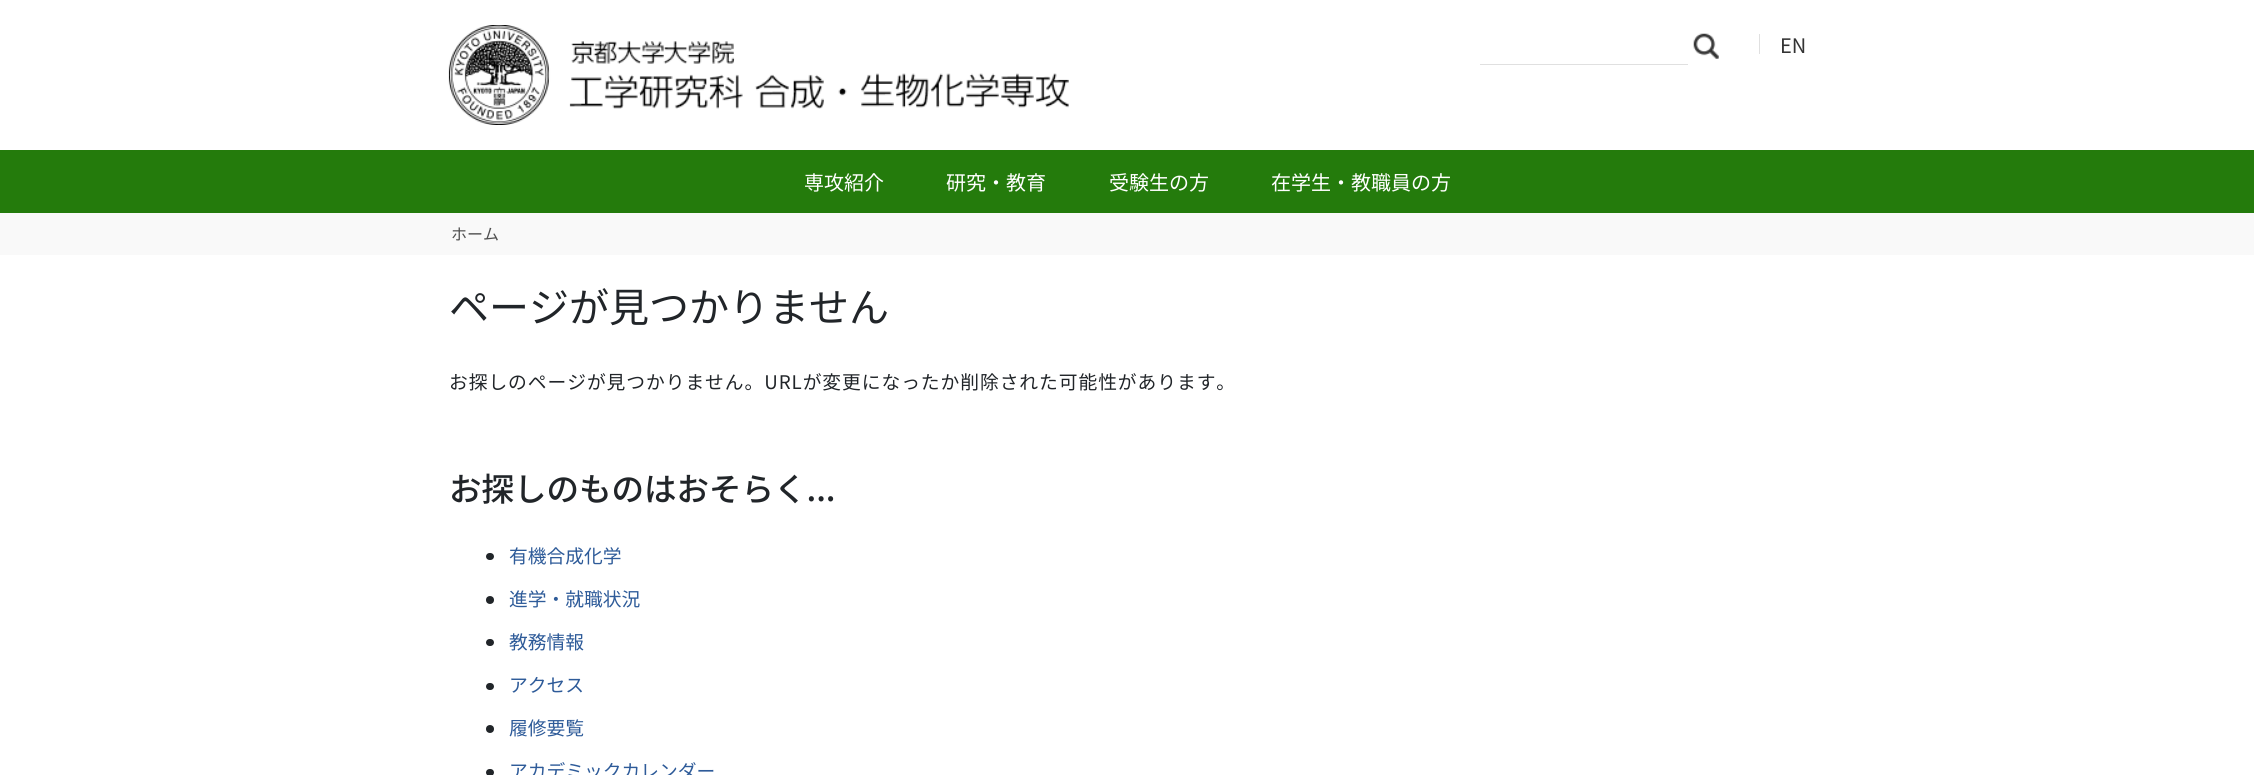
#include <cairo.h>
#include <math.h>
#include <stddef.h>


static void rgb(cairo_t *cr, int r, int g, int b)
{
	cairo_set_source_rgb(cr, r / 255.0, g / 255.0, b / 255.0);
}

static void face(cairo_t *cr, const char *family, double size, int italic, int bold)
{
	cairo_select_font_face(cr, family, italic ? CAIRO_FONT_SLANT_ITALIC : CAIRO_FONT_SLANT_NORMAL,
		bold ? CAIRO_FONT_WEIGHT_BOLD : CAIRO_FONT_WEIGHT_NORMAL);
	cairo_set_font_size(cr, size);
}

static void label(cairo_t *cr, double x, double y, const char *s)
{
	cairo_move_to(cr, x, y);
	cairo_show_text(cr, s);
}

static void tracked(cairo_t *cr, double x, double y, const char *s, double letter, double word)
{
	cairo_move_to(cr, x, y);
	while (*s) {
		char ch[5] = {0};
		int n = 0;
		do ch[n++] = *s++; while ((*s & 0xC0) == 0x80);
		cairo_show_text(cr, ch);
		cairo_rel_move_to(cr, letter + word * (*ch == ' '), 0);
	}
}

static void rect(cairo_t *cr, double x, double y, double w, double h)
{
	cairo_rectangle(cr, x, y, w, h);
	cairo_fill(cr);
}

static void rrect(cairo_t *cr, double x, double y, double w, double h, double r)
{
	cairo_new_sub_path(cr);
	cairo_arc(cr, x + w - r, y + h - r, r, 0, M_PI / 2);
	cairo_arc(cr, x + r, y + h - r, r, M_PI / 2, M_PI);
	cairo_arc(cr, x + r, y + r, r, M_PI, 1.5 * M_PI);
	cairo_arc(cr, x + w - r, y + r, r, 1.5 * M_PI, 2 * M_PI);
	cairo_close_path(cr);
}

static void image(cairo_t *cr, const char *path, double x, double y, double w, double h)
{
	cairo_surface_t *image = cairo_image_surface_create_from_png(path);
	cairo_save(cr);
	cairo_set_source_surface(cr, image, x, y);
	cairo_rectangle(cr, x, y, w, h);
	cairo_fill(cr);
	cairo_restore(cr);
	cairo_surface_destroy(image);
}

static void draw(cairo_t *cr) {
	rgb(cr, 255, 255, 255);
	cairo_paint(cr);
	image(cr, "image0.png", 448, 25, 621, 100);
	rgb(cr, 224, 224, 224);
	rect(cr, 1759, 34, 1, 20);
	face(cr, "Noto Sans JP", 20, 0, 0);
	rgb(cr, 52, 52, 52);
	label(cr, 1780, 53, "EN");
	rgb(cr, 36, 123, 12);
	rect(cr, 0, 150, 2254, 63);
	image(cr, "image1.png", 1693, 33, 26, 26);
	rgb(cr, 224, 224, 224);
	rect(cr, 1480, 64, 208, 1);
	rgb(cr, 255, 255, 255);
	label(cr, 804, 190, "専攻紹介");
	label(cr, 946, 190, "研究・教育");
	label(cr, 1109, 190, "受験生の方");
	label(cr, 1271, 190, "在学生・教職員の方");
	rgb(cr, 249, 249, 249);
	rect(cr, 0, 213, 2254, 42);
	face(cr, "Noto Sans JP", 16, 0, 0);
	rgb(cr, 80, 80, 80);
	label(cr, 451, 240, "ホーム");
	face(cr, "Noto Sans JP", 40, 0, 0);
	rgb(cr, 33, 37, 41);
	label(cr, 449, 322, "ページが見つかりません");
	face(cr, "Noto Sans JP", 18.75, 0, 0);
	tracked(cr, 449, 389, "お探しのページが見つかりません。URLが変更になったか削除された可能性があります。", 0.95, 0);
	face(cr, "Noto Sans JP Medium", 32.5, 0, 0);
	label(cr, 449, 501, "お探しのものはおそらく...");
	rrect(cr, 486, 553, 8, 7, 3.5);
	cairo_fill(cr);
	face(cr, "Noto Sans JP", 18.75, 0, 0);
	rgb(cr, 46, 91, 153);
	label(cr, 509, 563, "有機合成化学");
	rgb(cr, 33, 37, 41);
	cairo_new_path(cr);
	cairo_arc(cr, 490, 600, 4, 0, 2 * M_PI);
	cairo_fill(cr);
	rgb(cr, 46, 91, 153);
	label(cr, 509, 606, "進学・就職状況");
	rgb(cr, 33, 37, 41);
	rrect(cr, 486, 639, 8, 7, 3.5);
	cairo_fill(cr);
	rgb(cr, 46, 91, 153);
	label(cr, 509, 649, "教務情報");
	rgb(cr, 33, 37, 41);
	rrect(cr, 486, 683, 8, 7, 3.5);
	cairo_fill(cr);
	rgb(cr, 46, 91, 153);
	label(cr, 509, 692, "アクセス");
	rgb(cr, 33, 37, 41);
	cairo_new_path(cr);
	cairo_arc(cr, 490, 729, 4, 0, 2 * M_PI);
	cairo_fill(cr);
	rgb(cr, 46, 91, 153);
	label(cr, 509, 735, "履修要覧");
	rgb(cr, 33, 37, 41);
	rrect(cr, 486, 769, 8, 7, 3.5);
	cairo_fill(cr);
	rgb(cr, 46, 91, 153);
	label(cr, 509, 778, "アカデミックカレンダー");
}

int main(void) {
	cairo_surface_t *surface = cairo_image_surface_create(CAIRO_FORMAT_RGB24, 2254, 775);
	cairo_t *cr = cairo_create(surface);
	cairo_font_options_t *options = cairo_font_options_create();
	cairo_font_options_set_hint_metrics(options, CAIRO_HINT_METRICS_OFF);
	cairo_font_options_set_hint_style(options, CAIRO_HINT_STYLE_NONE);
	cairo_set_font_options(cr, options);
	cairo_set_miter_limit(cr, 4);
	draw(cr);
	cairo_surface_write_to_png(surface, "render.png");
	cairo_font_options_destroy(options);
	cairo_destroy(cr);
	cairo_surface_destroy(surface);
	return 0;
}
